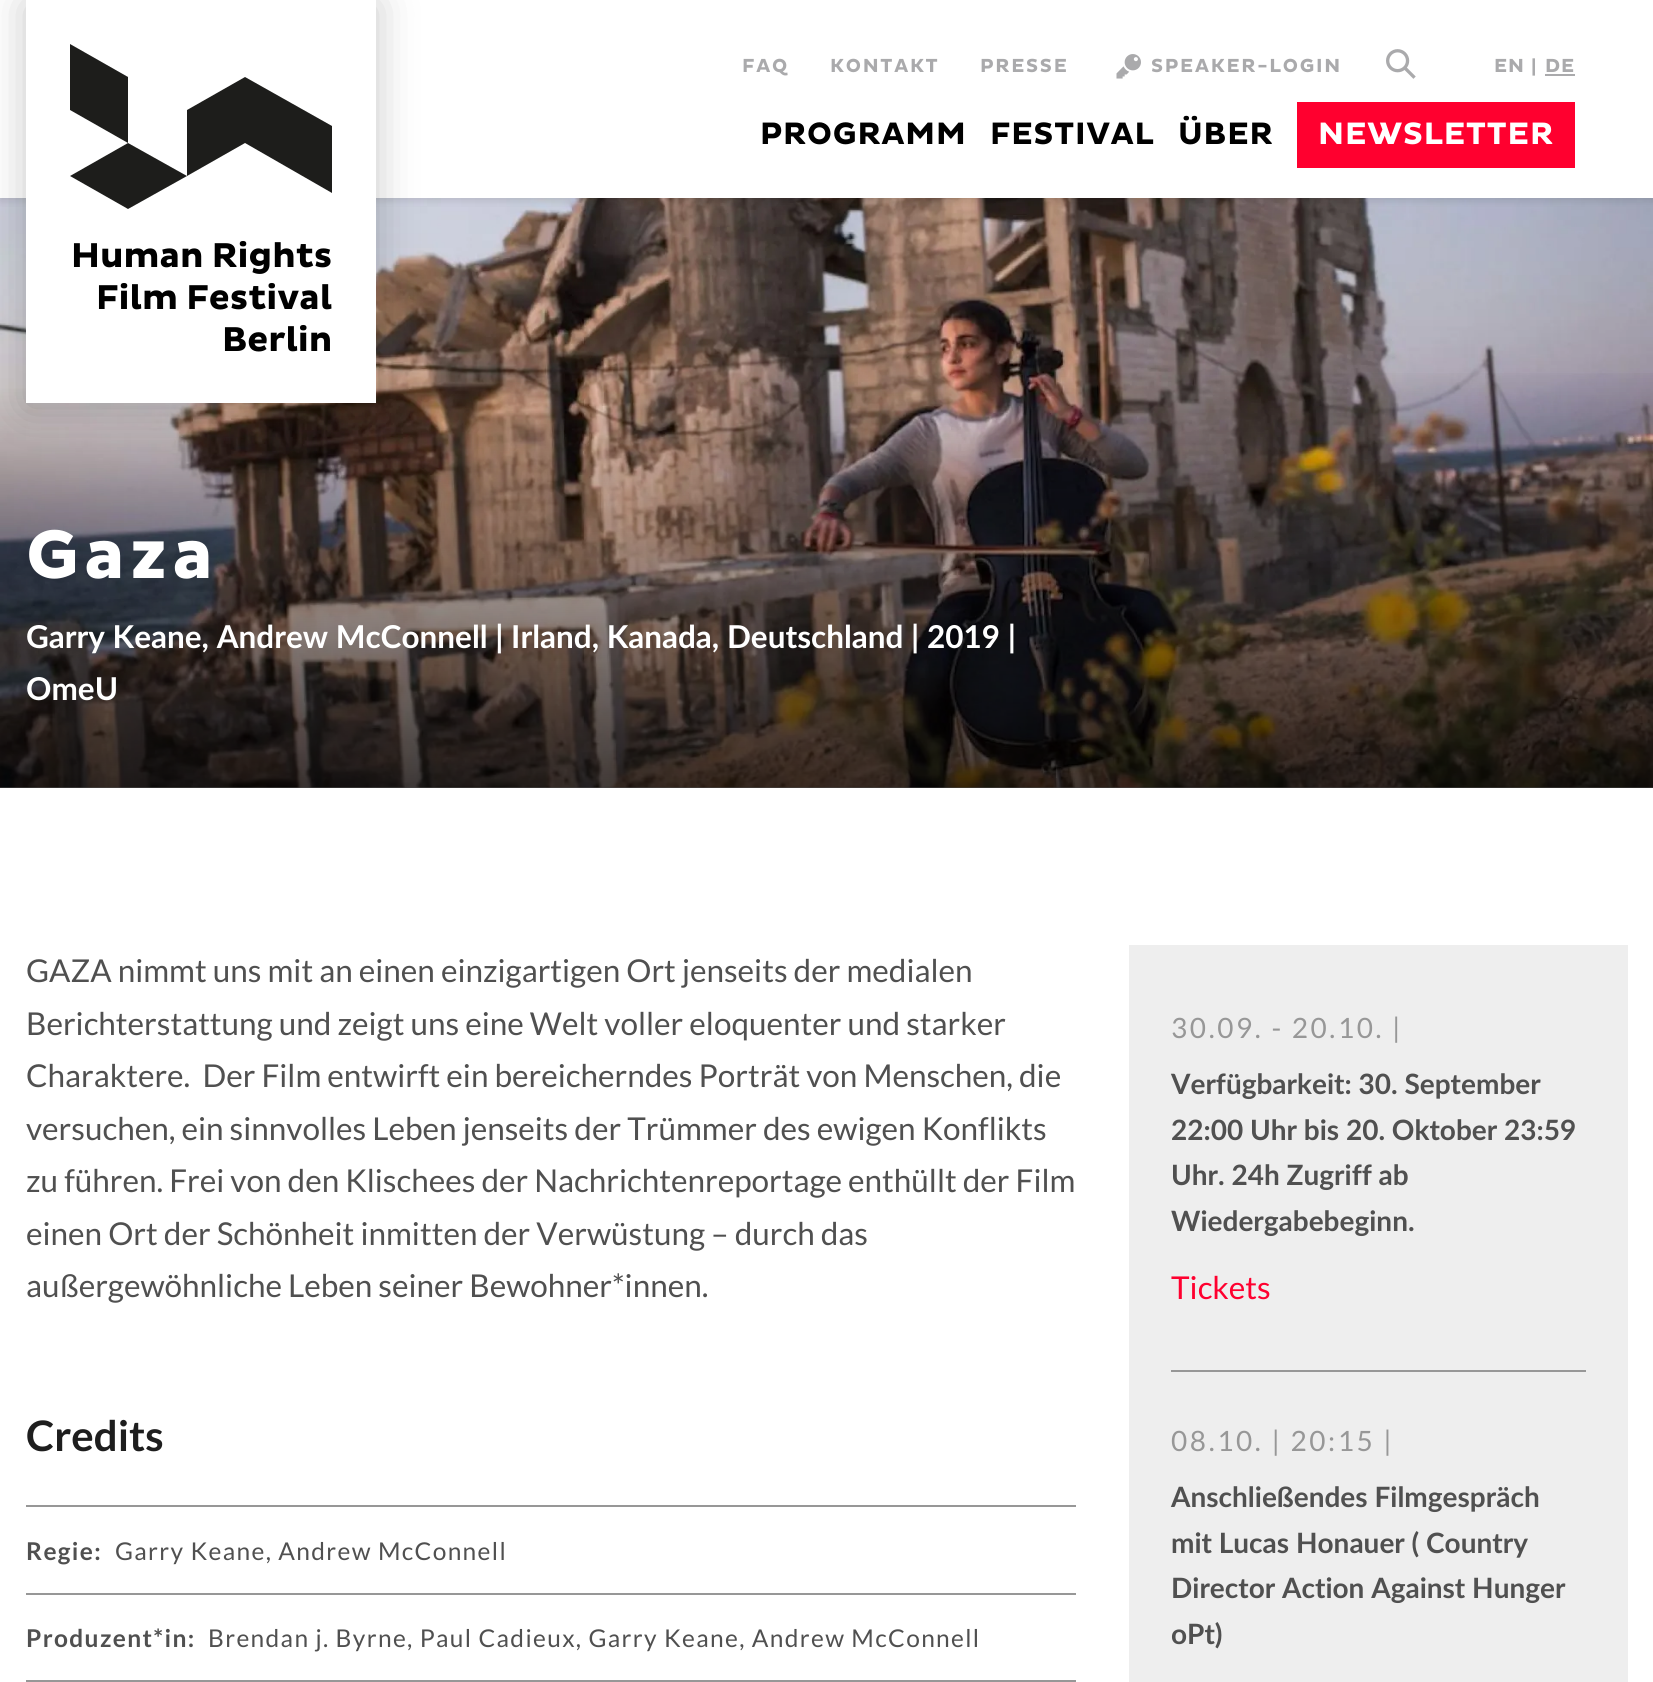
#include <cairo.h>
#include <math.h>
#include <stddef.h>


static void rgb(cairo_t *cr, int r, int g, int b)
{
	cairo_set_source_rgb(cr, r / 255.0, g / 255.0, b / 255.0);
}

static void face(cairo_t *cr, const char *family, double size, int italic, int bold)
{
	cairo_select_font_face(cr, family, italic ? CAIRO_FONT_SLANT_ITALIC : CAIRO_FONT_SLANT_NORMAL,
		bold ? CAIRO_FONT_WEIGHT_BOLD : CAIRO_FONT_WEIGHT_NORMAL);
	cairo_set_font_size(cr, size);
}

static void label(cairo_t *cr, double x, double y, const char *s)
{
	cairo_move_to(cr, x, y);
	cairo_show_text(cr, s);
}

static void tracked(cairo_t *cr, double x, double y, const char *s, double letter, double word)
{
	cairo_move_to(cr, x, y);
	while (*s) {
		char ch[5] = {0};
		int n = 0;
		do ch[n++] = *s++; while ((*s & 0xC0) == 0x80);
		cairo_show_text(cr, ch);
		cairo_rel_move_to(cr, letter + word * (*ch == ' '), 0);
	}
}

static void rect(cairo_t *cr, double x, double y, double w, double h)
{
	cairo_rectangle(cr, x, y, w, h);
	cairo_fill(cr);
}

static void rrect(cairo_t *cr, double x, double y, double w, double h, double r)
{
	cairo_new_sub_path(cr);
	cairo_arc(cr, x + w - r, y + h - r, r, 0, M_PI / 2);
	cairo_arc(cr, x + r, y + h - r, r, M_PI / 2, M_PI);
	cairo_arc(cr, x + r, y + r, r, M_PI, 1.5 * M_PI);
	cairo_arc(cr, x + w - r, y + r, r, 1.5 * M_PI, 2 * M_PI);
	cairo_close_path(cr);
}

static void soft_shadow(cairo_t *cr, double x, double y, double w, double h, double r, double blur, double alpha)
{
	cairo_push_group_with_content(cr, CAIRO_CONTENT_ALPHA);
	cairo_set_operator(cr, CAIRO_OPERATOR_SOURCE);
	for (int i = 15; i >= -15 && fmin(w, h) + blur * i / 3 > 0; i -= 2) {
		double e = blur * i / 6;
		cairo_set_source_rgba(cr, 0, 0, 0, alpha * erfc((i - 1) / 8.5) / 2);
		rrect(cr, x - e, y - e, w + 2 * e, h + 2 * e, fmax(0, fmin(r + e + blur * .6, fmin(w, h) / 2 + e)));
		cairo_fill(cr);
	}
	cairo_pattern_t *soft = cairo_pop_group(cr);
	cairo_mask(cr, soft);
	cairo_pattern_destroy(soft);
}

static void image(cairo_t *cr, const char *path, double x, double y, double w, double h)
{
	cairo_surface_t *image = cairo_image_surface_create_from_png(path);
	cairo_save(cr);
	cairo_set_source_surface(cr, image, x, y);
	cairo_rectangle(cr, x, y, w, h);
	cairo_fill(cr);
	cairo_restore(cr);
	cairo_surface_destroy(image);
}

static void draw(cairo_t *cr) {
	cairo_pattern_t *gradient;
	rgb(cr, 255, 255, 255);
	cairo_paint(cr);
	image(cr, "image2.png", 0, 198, 1653, 590);
	rgb(cr, 0, 0, 0);
	soft_shadow(cr, 0, 4, 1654, 197, 0, 3.5, 0.1);
	rgb(cr, 255, 255, 255);
	rect(cr, 0, 0, 1653, 198);
	face(cr, "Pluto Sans", 19.25, 0, 1);
	rgb(cr, 170, 170, 172);
	tracked(cr, 742, 72, "FAQ", 1.75, 0);
	tracked(cr, 830, 72, "KONTAKT", 1.75, 0);
	tracked(cr, 980, 72, "PRESSE", 1.75, 0);
	image(cr, "image0.png", 1116, 54, 25, 25);
	tracked(cr, 1151, 72, "SPEAKER-LOGIN", 1.75, 0);
	image(cr, "image1.png", 1386, 49, 30, 30);
	tracked(cr, 1494, 72, "EN", 0.9, 0);
	tracked(cr, 1531, 72, "|", 1.75, 0);
	tracked(cr, 1545, 72, "DE", 0.9, 0);
	rect(cr, 1545, 74, 30, 2);
	face(cr, "Pluto Sans", 31.5, 0, 1);
	rgb(cr, 0, 0, 0);
	tracked(cr, 760, 144, "PROGRAMM", 0.9, 0);
	tracked(cr, 990, 144, "FESTIVAL", 0.9, 0);
	tracked(cr, 1178, 144, "ÜBER", 0.9, 0);
	rgb(cr, 255, 0, 47);
	rect(cr, 1297, 102, 278, 66);
	rgb(cr, 255, 255, 255);
	tracked(cr, 1318, 144, "NEWSLETTER", 0.9, 0);
	gradient = cairo_pattern_create_linear(823, 327, 831, 802);
	cairo_pattern_add_color_stop_rgba(gradient, 0.1, 0, 0, 0, 0);
	cairo_pattern_add_color_stop_rgba(gradient, 1, 0, 0, 0, 0.73);
	cairo_set_source(cr, gradient);
	cairo_pattern_destroy(gradient);
	rect(cr, 0, 373, 1653, 415);
	rgb(cr, 0, 0, 0);
	soft_shadow(cr, 26, 4, 350, 402, 0, 21, 0.22);
	rgb(cr, 255, 255, 255);
	rect(cr, 26, 0, 350, 403);
	rgb(cr, 29, 29, 27);
	cairo_set_fill_rule(cr, CAIRO_FILL_RULE_EVEN_ODD);
	cairo_new_path(cr);
	cairo_move_to(cr, 70, 44);
	cairo_line_to(cr, 70, 110);
	cairo_line_to(cr, 128, 143);
	cairo_line_to(cr, 128, 77);
	cairo_close_path(cr);
	cairo_fill(cr);
	cairo_new_path(cr);
	cairo_move_to(cr, 187, 110);
	cairo_line_to(cr, 187, 176);
	cairo_line_to(cr, 245, 143);
	cairo_line_to(cr, 332, 193);
	cairo_line_to(cr, 332, 126);
	cairo_line_to(cr, 245, 77);
	cairo_close_path(cr);
	cairo_fill(cr);
	cairo_new_path(cr);
	cairo_move_to(cr, 70, 176);
	cairo_line_to(cr, 128, 209);
	cairo_line_to(cr, 187, 176);
	cairo_line_to(cr, 128, 143);
	cairo_close_path(cr);
	cairo_fill(cr);
	face(cr, "Pluto Sans", 35, 0, 1);
	rgb(cr, 0, 0, 0);
	label(cr, 71, 267, "Human Rights");
	label(cr, 96, 309, "Film Festival");
	label(cr, 222, 351, "Berlin");
	face(cr, "Pluto Sans", 70, 0, 1);
	rgb(cr, 255, 255, 255);
	tracked(cr, 26, 578, "Gaza", 5, 0);
	face(cr, "Lato", 31.5, 0, 1);
	label(cr, 26, 648, "Garry Keane, Andrew McConnell | Irland, Kanada, Deutschland | 2019 |");
	label(cr, 26, 700, "OmeU");
	face(cr, "Lato", 31.5, 0, 0);
	rgb(cr, 80, 80, 80);
	label(cr, 26, 982, "GAZA nimmt uns mit an einen einzigartigen Ort jenseits der medialen");
	label(cr, 26, 1035, "Berichterstattung und zeigt uns eine Welt voller eloquenter und starker");
	label(cr, 26, 1087, "Charaktere.  Der Film entwirft ein bereicherndes Porträt von Menschen, die");
	label(cr, 26, 1140, "versuchen, ein sinnvolles Leben jenseits der Trümmer des ewigen Konflikts");
	label(cr, 26, 1192, "zu führen. Frei von den Klischees der Nachrichtenreportage enthüllt der Film");
	label(cr, 26, 1245, "einen Ort der Schönheit inmitten der Verwüstung – durch das");
	label(cr, 26, 1297, "außergewöhnliche Leben seiner Bewohner*innen.");
	face(cr, "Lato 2", 42, 0, 1);
	rgb(cr, 30, 30, 30);
	label(cr, 26, 1451, "Credits");
	rgb(cr, 151, 151, 151);
	rect(cr, 26, 1505, 1050, 2);
	face(cr, "Lato 2", 24.5, 0, 1);
	rgb(cr, 80, 80, 80);
	tracked(cr, 26, 1560, "Regie:", 1.35, 0);
	face(cr, "Lato", 24.5, 0, 0);
	tracked(cr, 115, 1560, "Garry Keane, Andrew McConnell", 1.35, 0);
	rgb(cr, 151, 151, 151);
	rect(cr, 26, 1593, 1050, 2);
	rect(cr, 26, 1680, 1050, 2);
	face(cr, "Lato 2", 24.5, 0, 1);
	rgb(cr, 80, 80, 80);
	tracked(cr, 26, 1647, "Produzent*in:", 1.35, 0);
	face(cr, "Lato", 24.5, 0, 0);
	tracked(cr, 208, 1647, "Brendan j. Byrne, Paul Cadieux, Garry Keane, Andrew McConnell", 1.35, 0);
	rgb(cr, 238, 238, 238);
	rect(cr, 1129, 945, 499, 737);
	face(cr, "Lato", 28, 0, 0);
	rgb(cr, 151, 151, 151);
	tracked(cr, 1171, 1038, "30.09. - 20.10. |", 2.6, 0);
	face(cr, "Lato", 28, 0, 1);
	rgb(cr, 80, 80, 80);
	label(cr, 1171, 1094, "Verfügbarkeit: 30. September");
	label(cr, 1171, 1140, "22:00 Uhr bis 20. Oktober 23:59");
	label(cr, 1171, 1185, "Uhr. 24h Zugriff ab");
	label(cr, 1171, 1231, "Wiedergabebeginn.");
	face(cr, "Lato", 31.5, 0, 0);
	rgb(cr, 255, 0, 47);
	label(cr, 1171, 1299, "Tickets");
	rgb(cr, 151, 151, 151);
	rect(cr, 1171, 1370, 415, 2);
	face(cr, "Lato", 28, 0, 0);
	tracked(cr, 1171, 1451, "08.10. | 20:15 |", 2.6, 0);
	face(cr, "Lato", 28, 0, 1);
	rgb(cr, 80, 80, 80);
	label(cr, 1171, 1507, "Anschließendes Filmgespräch");
	label(cr, 1171, 1553, "mit Lucas Honauer ( Country");
	label(cr, 1171, 1598, "Director Action Against Hunger");
	label(cr, 1171, 1644, "oPt)");
}

int main(void) {
	cairo_surface_t *surface = cairo_image_surface_create(CAIRO_FORMAT_RGB24, 1653, 1682);
	cairo_t *cr = cairo_create(surface);
	cairo_font_options_t *options = cairo_font_options_create();
	cairo_font_options_set_hint_metrics(options, CAIRO_HINT_METRICS_OFF);
	cairo_font_options_set_hint_style(options, CAIRO_HINT_STYLE_NONE);
	cairo_set_font_options(cr, options);
	cairo_set_miter_limit(cr, 4);
	draw(cr);
	cairo_surface_write_to_png(surface, "render.png");
	cairo_font_options_destroy(options);
	cairo_destroy(cr);
	cairo_surface_destroy(surface);
	return 0;
}
